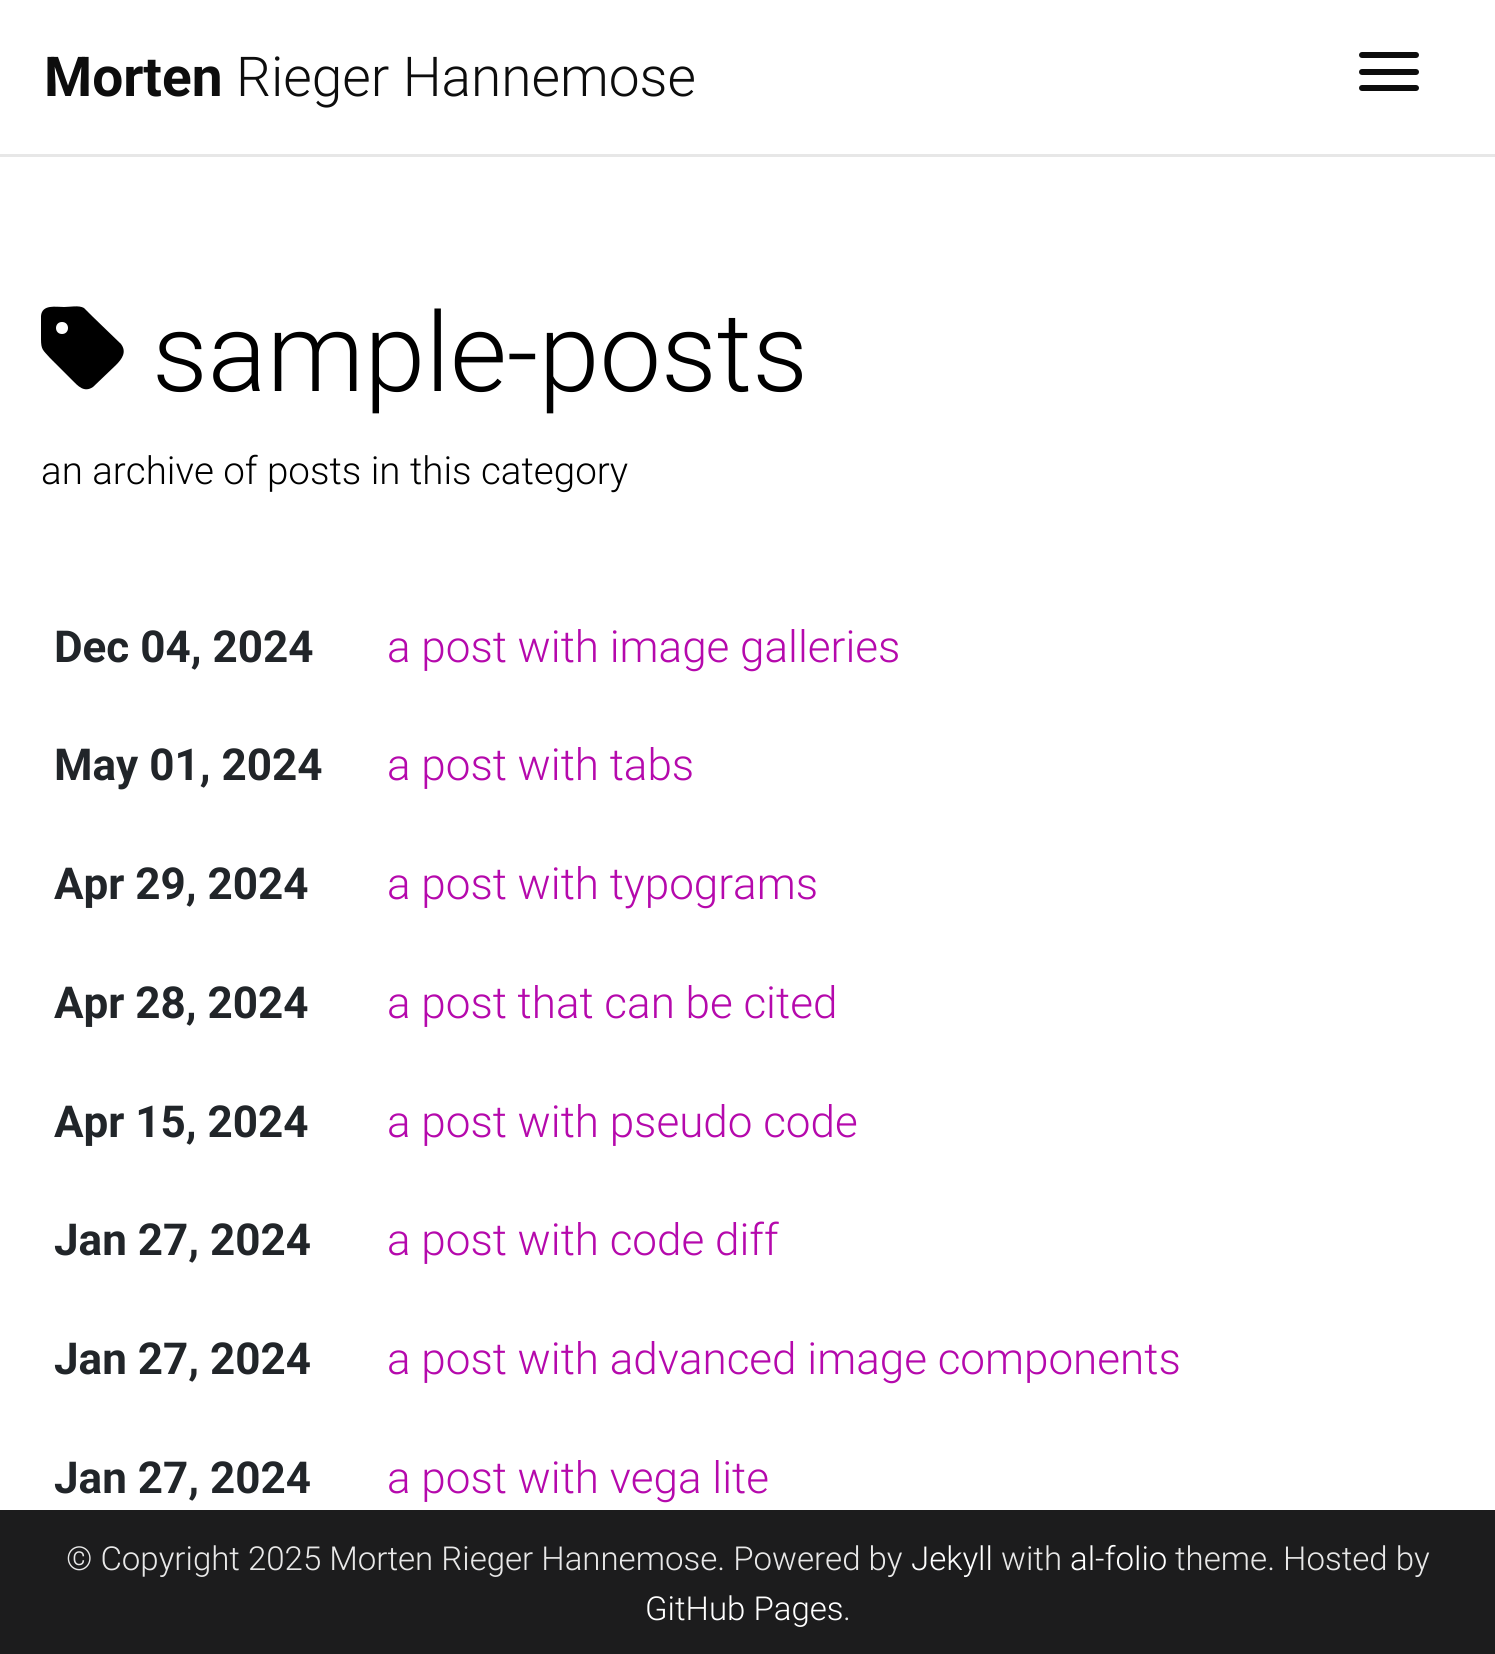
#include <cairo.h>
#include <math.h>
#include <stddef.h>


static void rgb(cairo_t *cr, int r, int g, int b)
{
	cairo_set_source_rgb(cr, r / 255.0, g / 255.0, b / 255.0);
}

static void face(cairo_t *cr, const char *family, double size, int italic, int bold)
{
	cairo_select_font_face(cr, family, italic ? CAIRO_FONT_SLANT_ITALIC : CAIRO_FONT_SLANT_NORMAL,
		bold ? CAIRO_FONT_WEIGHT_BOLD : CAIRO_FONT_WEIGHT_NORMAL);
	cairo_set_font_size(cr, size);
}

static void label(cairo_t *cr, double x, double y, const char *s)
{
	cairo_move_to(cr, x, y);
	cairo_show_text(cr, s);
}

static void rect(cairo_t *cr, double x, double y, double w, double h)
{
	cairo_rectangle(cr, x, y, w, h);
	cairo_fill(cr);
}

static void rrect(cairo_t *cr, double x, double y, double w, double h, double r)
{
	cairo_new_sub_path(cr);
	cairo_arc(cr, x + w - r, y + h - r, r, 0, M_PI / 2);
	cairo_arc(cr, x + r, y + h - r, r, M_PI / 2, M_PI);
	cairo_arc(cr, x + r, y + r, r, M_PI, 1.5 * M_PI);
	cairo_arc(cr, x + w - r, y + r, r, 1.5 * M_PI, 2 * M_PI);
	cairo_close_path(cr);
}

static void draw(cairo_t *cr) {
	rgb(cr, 255, 255, 255);
	cairo_paint(cr);
	rgb(cr, 231, 231, 231);
	rect(cr, 0, 154, 1495, 3);
	face(cr, "Roboto", 55, 0, 1);
	rgb(cr, 13, 13, 13);
	label(cr, 44, 96, "Morten");
	face(cr, "Roboto Light", 55, 0, 0);
	label(cr, 236, 96, "Rieger Hannemose");
	rrect(cr, 1359, 52, 60, 6, 3);
	cairo_fill(cr);
	rrect(cr, 1359, 69, 60, 6, 3);
	cairo_fill(cr);
	rrect(cr, 1359, 85, 60, 6, 3);
	cairo_fill(cr);
	rgb(cr, 0, 0, 0);
	cairo_new_path(cr);
	cairo_move_to(cr, 41, 316);
	cairo_line_to(cr, 41, 344);
	cairo_line_to(cr, 41, 316);
	cairo_line_to(cr, 41, 339);
	cairo_curve_to(cr, 41, 350, 43, 350, 50, 358);
	cairo_line_to(cr, 72, 380);
	cairo_curve_to(cr, 78, 386, 84, 393, 93, 387);
	cairo_line_to(cr, 116, 365);
	cairo_curve_to(cr, 122, 359, 127, 352, 121, 344);
	cairo_line_to(cr, 92, 316);
	cairo_line_to(cr, 84, 308);
	cairo_curve_to(cr, 79, 305, 70, 307, 64, 307);
	cairo_curve_to(cr, 56, 307, 42, 304, 41, 316);
	cairo_close_path(cr);
	cairo_move_to(cr, 62, 322);
	cairo_curve_to(cr, 70, 322, 70, 334, 62, 334);
	cairo_curve_to(cr, 54, 334, 54, 322, 62, 322);
	cairo_close_path(cr);
	cairo_fill(cr);
	face(cr, "Roboto Light", 110, 0, 0);
	label(cr, 152, 391, "sample-posts");
	face(cr, "Roboto Light", 38.5, 0, 0);
	label(cr, 41, 484, "an archive of posts in this category");
	face(cr, "Roboto", 44, 0, 1);
	rgb(cr, 33, 37, 41);
	label(cr, 54, 662, "Dec 04, 2024");
	face(cr, "Roboto Light", 44, 0, 0);
	rgb(cr, 181, 9, 172);
	label(cr, 387, 662, "a post with image galleries");
	face(cr, "Roboto", 44, 0, 1);
	rgb(cr, 33, 37, 41);
	label(cr, 54, 780, "May 01, 2024");
	face(cr, "Roboto Light", 44, 0, 0);
	rgb(cr, 181, 9, 172);
	label(cr, 387, 780, "a post with tabs");
	face(cr, "Roboto", 44, 0, 1);
	rgb(cr, 33, 37, 41);
	label(cr, 54, 899, "Apr 29, 2024");
	face(cr, "Roboto Light", 44, 0, 0);
	rgb(cr, 181, 9, 172);
	label(cr, 387, 899, "a post with typograms");
	face(cr, "Roboto", 44, 0, 1);
	rgb(cr, 33, 37, 41);
	label(cr, 54, 1018, "Apr 28, 2024");
	face(cr, "Roboto Light", 44, 0, 0);
	rgb(cr, 181, 9, 172);
	label(cr, 387, 1018, "a post that can be cited");
	face(cr, "Roboto", 44, 0, 1);
	rgb(cr, 33, 37, 41);
	label(cr, 54, 1137, "Apr 15, 2024");
	face(cr, "Roboto Light", 44, 0, 0);
	rgb(cr, 181, 9, 172);
	label(cr, 387, 1137, "a post with pseudo code");
	face(cr, "Roboto", 44, 0, 1);
	rgb(cr, 33, 37, 41);
	label(cr, 54, 1255, "Jan 27, 2024");
	face(cr, "Roboto Light", 44, 0, 0);
	rgb(cr, 181, 9, 172);
	label(cr, 387, 1255, "a post with code diff");
	face(cr, "Roboto", 44, 0, 1);
	rgb(cr, 33, 37, 41);
	label(cr, 54, 1374, "Jan 27, 2024");
	face(cr, "Roboto Light", 44, 0, 0);
	rgb(cr, 181, 9, 172);
	label(cr, 387, 1374, "a post with advanced image components");
	face(cr, "Roboto", 44, 0, 1);
	rgb(cr, 33, 37, 41);
	label(cr, 54, 1493, "Jan 27, 2024");
	face(cr, "Roboto Light", 44, 0, 0);
	rgb(cr, 181, 9, 172);
	label(cr, 387, 1493, "a post with vega lite");
	rgb(cr, 28, 28, 29);
	rect(cr, 0, 1510, 1495, 144);
	face(cr, "Roboto Light", 33, 0, 0);
	rgb(cr, 232, 232, 232);
	label(cr, 66, 1570, "© Copyright 2025 Morten Rieger Hannemose. Powered by");
	rgb(cr, 255, 255, 255);
	label(cr, 911, 1570, "Jekyll");
	rgb(cr, 232, 232, 232);
	label(cr, 1001, 1570, "with");
	rgb(cr, 255, 255, 255);
	label(cr, 1070, 1570, "al-folio");
	rgb(cr, 232, 232, 232);
	label(cr, 1175, 1570, "theme. Hosted by");
	rgb(cr, 255, 255, 255);
	label(cr, 645, 1620, "GitHub Pages");
	rgb(cr, 232, 232, 232);
	label(cr, 843, 1620, ".");
}

int main(void) {
	cairo_surface_t *surface = cairo_image_surface_create(CAIRO_FORMAT_RGB24, 1495, 1654);
	cairo_t *cr = cairo_create(surface);
	cairo_font_options_t *options = cairo_font_options_create();
	cairo_font_options_set_hint_metrics(options, CAIRO_HINT_METRICS_OFF);
	cairo_font_options_set_hint_style(options, CAIRO_HINT_STYLE_NONE);
	cairo_set_font_options(cr, options);
	cairo_set_miter_limit(cr, 4);
	draw(cr);
	cairo_surface_write_to_png(surface, "render.png");
	cairo_font_options_destroy(options);
	cairo_destroy(cr);
	cairo_surface_destroy(surface);
	return 0;
}
